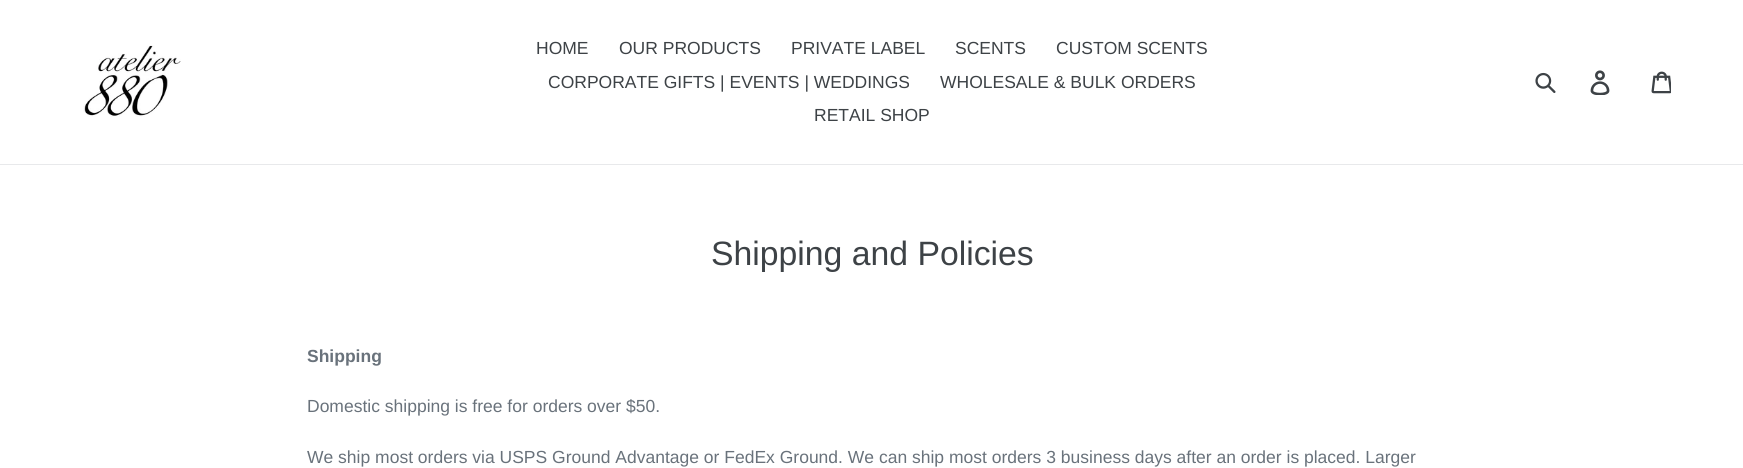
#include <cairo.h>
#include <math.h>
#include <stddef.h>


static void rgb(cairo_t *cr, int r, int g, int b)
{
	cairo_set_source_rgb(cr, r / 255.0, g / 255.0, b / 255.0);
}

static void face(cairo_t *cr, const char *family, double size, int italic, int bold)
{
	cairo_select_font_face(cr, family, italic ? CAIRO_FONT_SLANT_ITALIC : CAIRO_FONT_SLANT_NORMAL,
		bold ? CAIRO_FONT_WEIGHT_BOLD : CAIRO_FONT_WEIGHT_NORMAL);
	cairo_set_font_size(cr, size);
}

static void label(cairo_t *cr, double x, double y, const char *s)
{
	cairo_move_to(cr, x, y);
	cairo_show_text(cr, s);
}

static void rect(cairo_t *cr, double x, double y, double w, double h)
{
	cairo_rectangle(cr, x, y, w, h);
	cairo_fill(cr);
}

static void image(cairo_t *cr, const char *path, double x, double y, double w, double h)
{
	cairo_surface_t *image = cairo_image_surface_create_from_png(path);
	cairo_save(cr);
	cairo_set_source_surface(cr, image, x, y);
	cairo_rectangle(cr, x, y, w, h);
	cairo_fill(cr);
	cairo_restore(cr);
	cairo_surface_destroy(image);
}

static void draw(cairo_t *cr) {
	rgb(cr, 255, 255, 255);
	cairo_paint(cr);
	rgb(cr, 232, 233, 235);
	rect(cr, 0, 164, 1743, 1);
	image(cr, "image0.png", 83, 45, 98, 72);
	face(cr, "Liberation Sans", 17.5, 0, 0);
	rgb(cr, 61, 66, 70);
	label(cr, 536, 54, "HOME");
	label(cr, 619, 54, "OUR PRODUCTS");
	label(cr, 791, 54, "PRIVATE LABEL");
	label(cr, 955, 54, "SCENTS");
	label(cr, 1056, 54, "CUSTOM SCENTS");
	label(cr, 548, 88, "CORPORATE GIFTS | EVENTS | WEDDINGS");
	label(cr, 940, 88, "WHOLESALE & BULK ORDERS");
	label(cr, 814, 121, "RETAIL SHOP");
	image(cr, "image1.png", 1535, 72, 21, 21);
	image(cr, "image2.png", 1590, 70, 20, 25);
	image(cr, "image3.png", 1651, 71, 20, 23);
	face(cr, "Liberation Sans", 33.75, 0, 0);
	label(cr, 711, 265, "Shipping and Policies");
	face(cr, "Liberation Sans", 17.5, 0, 1);
	rgb(cr, 105, 114, 123);
	label(cr, 307, 362, "Shipping");
	face(cr, "Liberation Sans", 17.5, 0, 0);
	label(cr, 307, 412, "Domestic shipping is free for orders over $50.");
	label(cr, 307, 463, "We ship most orders via USPS Ground Advantage or FedEx Ground. We can ship most orders 3 business days after an order is placed. Larger");
}

int main(void) {
	cairo_surface_t *surface = cairo_image_surface_create(CAIRO_FORMAT_RGB24, 1743, 468);
	cairo_t *cr = cairo_create(surface);
	cairo_font_options_t *options = cairo_font_options_create();
	cairo_font_options_set_hint_metrics(options, CAIRO_HINT_METRICS_OFF);
	cairo_font_options_set_hint_style(options, CAIRO_HINT_STYLE_NONE);
	cairo_set_font_options(cr, options);
	cairo_set_miter_limit(cr, 4);
	draw(cr);
	cairo_surface_write_to_png(surface, "render.png");
	cairo_font_options_destroy(options);
	cairo_destroy(cr);
	cairo_surface_destroy(surface);
	return 0;
}
